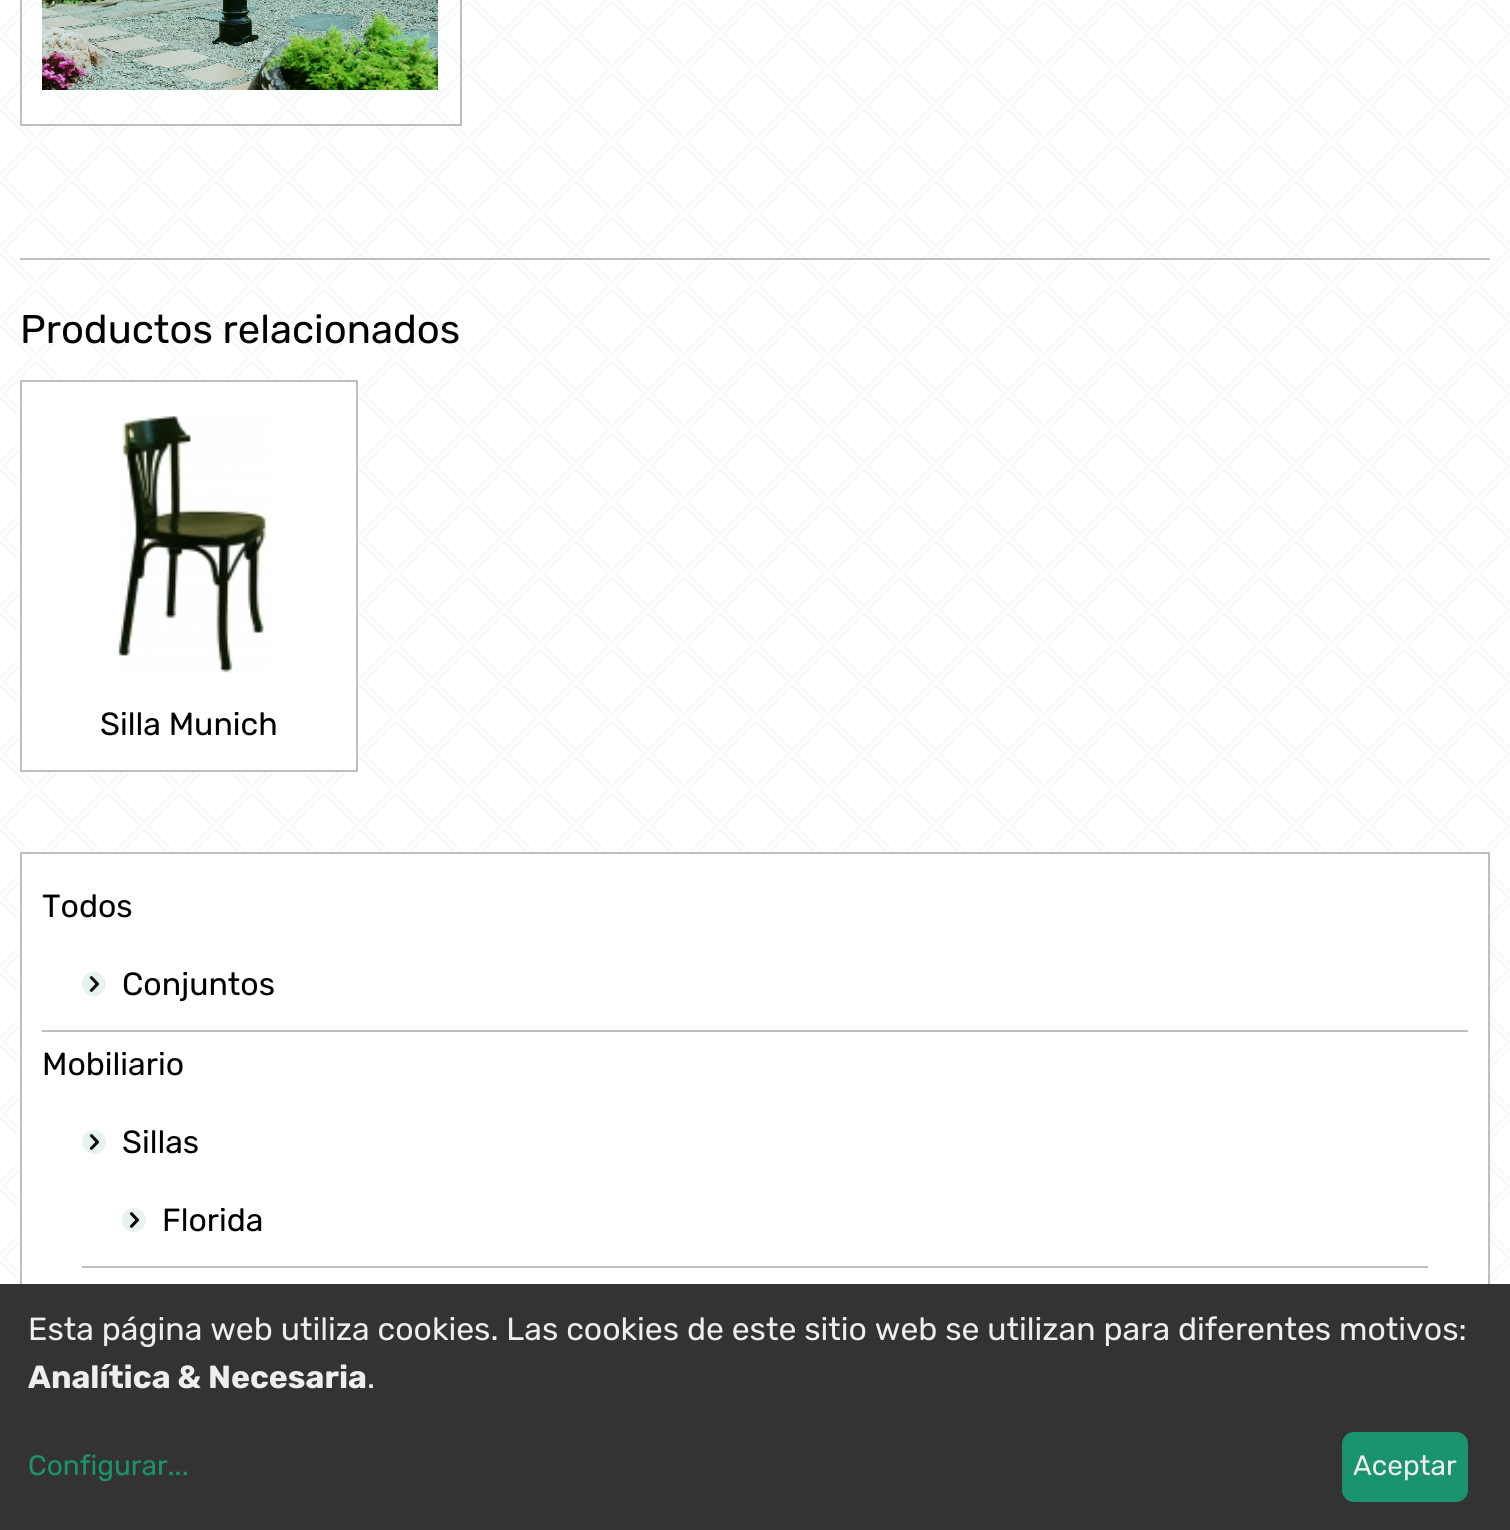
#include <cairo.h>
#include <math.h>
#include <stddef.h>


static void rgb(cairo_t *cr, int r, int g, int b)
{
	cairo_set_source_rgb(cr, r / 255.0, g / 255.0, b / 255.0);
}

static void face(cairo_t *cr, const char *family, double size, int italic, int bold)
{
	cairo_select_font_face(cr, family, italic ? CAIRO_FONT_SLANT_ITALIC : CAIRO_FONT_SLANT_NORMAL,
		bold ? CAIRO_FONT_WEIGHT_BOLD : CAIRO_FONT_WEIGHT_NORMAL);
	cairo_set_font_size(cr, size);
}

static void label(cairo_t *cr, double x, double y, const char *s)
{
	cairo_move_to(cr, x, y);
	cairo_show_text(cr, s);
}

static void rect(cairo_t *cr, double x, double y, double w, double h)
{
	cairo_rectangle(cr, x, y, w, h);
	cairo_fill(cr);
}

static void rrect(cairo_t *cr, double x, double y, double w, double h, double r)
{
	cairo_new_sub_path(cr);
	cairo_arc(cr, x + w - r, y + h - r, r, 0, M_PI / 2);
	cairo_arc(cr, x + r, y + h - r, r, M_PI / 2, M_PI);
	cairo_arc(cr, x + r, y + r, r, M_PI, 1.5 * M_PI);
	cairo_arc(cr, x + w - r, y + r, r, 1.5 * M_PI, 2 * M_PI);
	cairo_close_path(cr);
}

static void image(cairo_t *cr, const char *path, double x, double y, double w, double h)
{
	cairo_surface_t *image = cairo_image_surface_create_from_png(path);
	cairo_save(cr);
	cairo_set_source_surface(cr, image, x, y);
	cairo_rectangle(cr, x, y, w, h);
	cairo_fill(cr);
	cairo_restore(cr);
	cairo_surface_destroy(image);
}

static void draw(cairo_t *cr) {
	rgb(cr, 255, 255, 255);
	cairo_paint(cr);
	image(cr, "image0.png", 0, 0, 1510, 1284);
	cairo_rectangle(cr, 21, -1, 440, 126);
	rgb(cr, 191, 191, 191);
	cairo_stroke(cr);
	image(cr, "image1.png", 42, 0, 396, 90);
	rect(cr, 20, 258, 1470, 2);
	face(cr, "Rubik", 40, 0, 0);
	rgb(cr, 0, 0, 0);
	label(cr, 20, 343, "Productos relacionados");
	rgb(cr, 255, 255, 255);
	cairo_rectangle(cr, 21, 381, 336, 390);
	cairo_fill_preserve(cr);
	rgb(cr, 191, 191, 191);
	cairo_stroke(cr);
	image(cr, "image2.png", 117, 414, 152, 259);
	face(cr, "Rubik", 32, 0, 0);
	rgb(cr, 0, 0, 0);
	label(cr, 100, 735, "Silla Munich");
	rgb(cr, 255, 255, 255);
	rect(cr, 22, 854, 1466, 430);
	cairo_rectangle(cr, 21, 853, 1468, 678);
	rgb(cr, 191, 191, 191);
	cairo_stroke(cr);
	rect(cr, 42, 1030, 1426, 2);
	rgb(cr, 0, 0, 0);
	label(cr, 42, 917, "Todos");
	image(cr, "image3.png", 82, 972, 24, 24);
	label(cr, 122, 995, "Conjuntos");
	label(cr, 42, 1075, "Mobiliario");
	rgb(cr, 191, 191, 191);
	rect(cr, 82, 1266, 1346, 2);
	image(cr, "image3.png", 82, 1130, 24, 24);
	rgb(cr, 0, 0, 0);
	label(cr, 122, 1153, "Sillas");
	image(cr, "image3.png", 122, 1208, 24, 24);
	label(cr, 162, 1231, "Florida");
	rgb(cr, 51, 51, 51);
	rect(cr, 0, 1284, 1510, 246);
	rgb(cr, 238, 238, 238);
	label(cr, 28, 1340, "Esta página web utiliza cookies. Las cookies de este sitio web se utilizan para diferentes motivos:");
	face(cr, "Rubik", 32, 0, 1);
	label(cr, 28, 1388, "Analítica & Necesaria");
	face(cr, "Rubik", 32, 0, 0);
	label(cr, 367, 1388, ".");
	face(cr, "Rubik", 28, 0, 0);
	rgb(cr, 26, 147, 111);
	label(cr, 28, 1475, "Configurar...");
	rrect(cr, 1342, 1432, 126, 70, 12);
	cairo_fill(cr);
	rgb(cr, 238, 238, 238);
	label(cr, 1353, 1475, "Aceptar");
}

int main(void) {
	cairo_surface_t *surface = cairo_image_surface_create(CAIRO_FORMAT_RGB24, 1510, 1530);
	cairo_t *cr = cairo_create(surface);
	cairo_font_options_t *options = cairo_font_options_create();
	cairo_font_options_set_hint_metrics(options, CAIRO_HINT_METRICS_OFF);
	cairo_font_options_set_hint_style(options, CAIRO_HINT_STYLE_NONE);
	cairo_set_font_options(cr, options);
	cairo_set_miter_limit(cr, 4);
	draw(cr);
	cairo_surface_write_to_png(surface, "render.png");
	cairo_font_options_destroy(options);
	cairo_destroy(cr);
	cairo_surface_destroy(surface);
	return 0;
}
